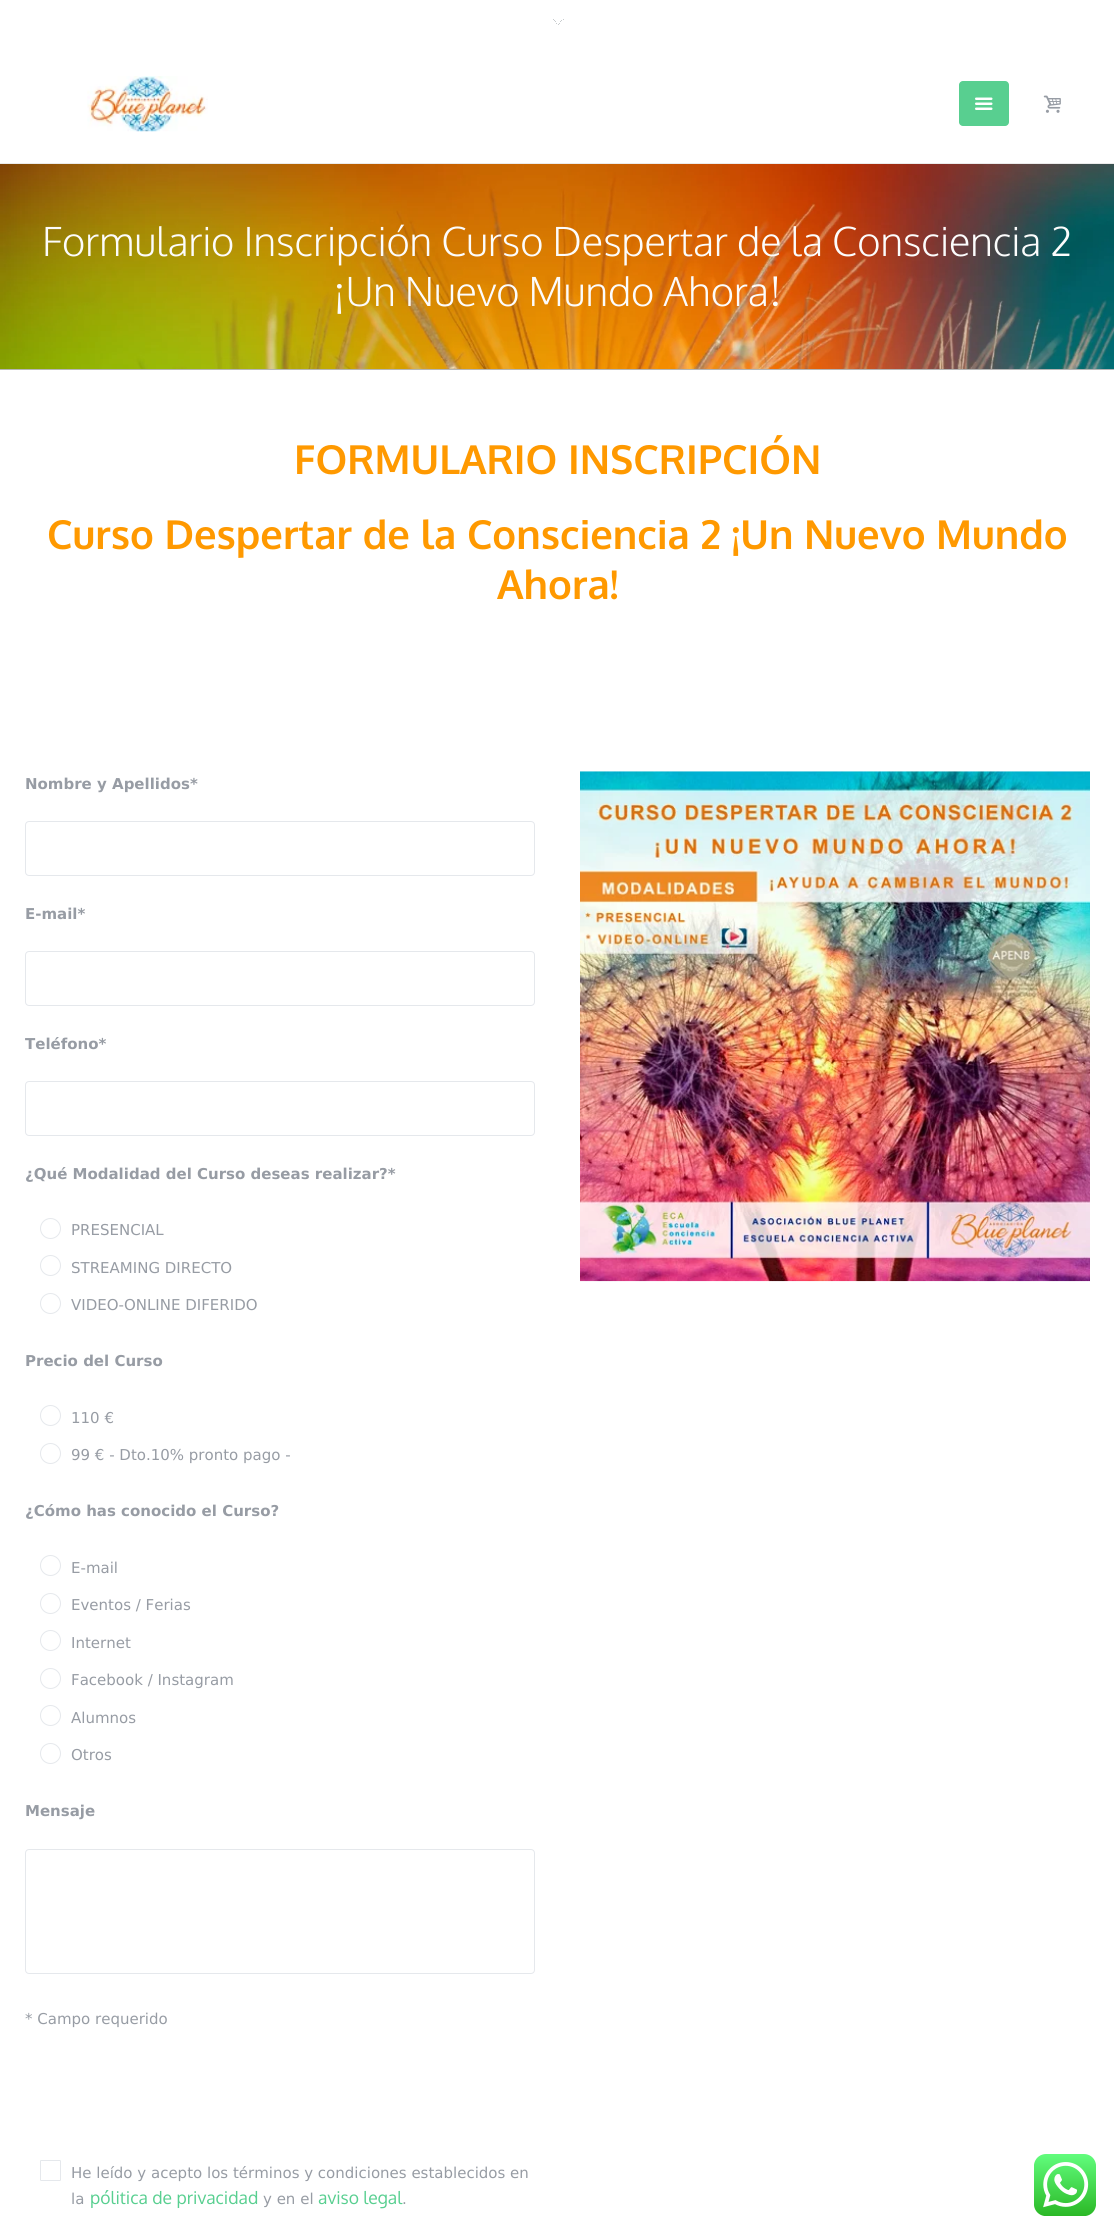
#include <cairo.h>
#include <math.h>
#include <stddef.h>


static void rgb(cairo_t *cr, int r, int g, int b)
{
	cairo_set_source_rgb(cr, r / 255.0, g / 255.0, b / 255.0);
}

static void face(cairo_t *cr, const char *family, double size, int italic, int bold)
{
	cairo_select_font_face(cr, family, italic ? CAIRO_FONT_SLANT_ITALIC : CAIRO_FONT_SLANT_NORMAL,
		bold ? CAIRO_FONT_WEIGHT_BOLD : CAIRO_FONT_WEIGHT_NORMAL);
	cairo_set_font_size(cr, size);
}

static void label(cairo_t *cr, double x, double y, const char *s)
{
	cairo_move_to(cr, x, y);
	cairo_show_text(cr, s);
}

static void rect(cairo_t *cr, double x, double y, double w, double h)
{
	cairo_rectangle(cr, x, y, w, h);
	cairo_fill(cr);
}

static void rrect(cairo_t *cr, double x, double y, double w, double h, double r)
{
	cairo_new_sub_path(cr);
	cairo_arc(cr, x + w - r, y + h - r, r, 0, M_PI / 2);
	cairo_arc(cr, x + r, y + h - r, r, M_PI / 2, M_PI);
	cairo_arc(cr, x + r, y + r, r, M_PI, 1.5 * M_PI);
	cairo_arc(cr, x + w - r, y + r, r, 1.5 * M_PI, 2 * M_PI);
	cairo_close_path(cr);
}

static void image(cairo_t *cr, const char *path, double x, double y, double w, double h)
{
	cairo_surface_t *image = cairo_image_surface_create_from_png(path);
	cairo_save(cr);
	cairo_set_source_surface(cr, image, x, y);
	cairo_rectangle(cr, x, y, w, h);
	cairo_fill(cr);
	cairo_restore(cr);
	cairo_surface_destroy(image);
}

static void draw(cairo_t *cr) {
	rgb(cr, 255, 255, 255);
	cairo_paint(cr);
	rgb(cr, 200, 204, 206);
	rect(cr, 558, 24, 1, 1);
	rect(cr, 563, 19, 1, 1);
	rect(cr, 553, 19, 1, 1);
	rect(cr, 561, 20, 1, 1);
	rect(cr, 554, 20, 1, 1);
	rect(cr, 560, 21, 1, 1);
	rect(cr, 555, 21, 1, 1);
	rect(cr, 559, 23, 1, 1);
	rect(cr, 556, 23, 1, 1);
	rgb(cr, 235, 235, 235);
	rect(cr, 0, 163, 1114, 1);
	image(cr, "image0.png", 87, 76, 121, 56);
	rgb(cr, 88, 207, 144);
	rrect(cr, 959, 81, 50, 45, 4);
	cairo_fill(cr);
	image(cr, "image1.png", 975, 97, 18, 13);
	image(cr, "image2.png", 1043, 95, 18, 18);
	image(cr, "image3.png", 0, 164, 1114, 205);
	rgb(cr, 181, 181, 181);
	rect(cr, 0, 369, 1114, 1);
	face(cr, "Oxygen Light", 40, 0, 0);
	rgb(cr, 252, 252, 252);
	label(cr, 42, 256, "Formulario Inscripción Curso Despertar de la Consciencia 2");
	label(cr, 333, 306, "¡Un Nuevo Mundo Ahora!");
	face(cr, "Oxygen", 40, 0, 1);
	rgb(cr, 255, 153, 0);
	label(cr, 294, 474, "FORMULARIO INSCRIPCIÓN");
	label(cr, 47, 549, "Curso Despertar de la Consciencia 2 ¡Un Nuevo Mundo");
	label(cr, 497, 599, "Ahora!");
	face(cr, "DejaVu Sans", 15, 0, 1);
	rgb(cr, 151, 156, 164);
	label(cr, 25, 789, "Nombre y Apellidos*");
	rrect(cr, 25.5, 821.5, 509, 54, 3.5);
	rgb(cr, 229, 232, 236);
	cairo_set_line_width(cr, 1);
	cairo_stroke(cr);
	rgb(cr, 151, 156, 164);
	label(cr, 25, 919, "E-mail*");
	rrect(cr, 25.5, 951.5, 509, 54, 3.5);
	rgb(cr, 229, 232, 236);
	cairo_stroke(cr);
	rgb(cr, 151, 156, 164);
	label(cr, 25, 1049, "Teléfono*");
	rrect(cr, 25.5, 1081.5, 509, 54, 3.5);
	rgb(cr, 229, 232, 236);
	cairo_stroke(cr);
	rgb(cr, 151, 156, 164);
	label(cr, 25, 1179, "¿Qué Modalidad del Curso deseas realizar?*");
	cairo_new_path(cr);
	cairo_arc(cr, 50.5, 1228.5, 10, 0, 2 * M_PI);
	rgb(cr, 229, 232, 236);
	cairo_stroke(cr);
	face(cr, "DejaVu Sans", 15, 0, 0);
	rgb(cr, 151, 156, 164);
	label(cr, 71, 1235, "PRESENCIAL");
	cairo_new_path(cr);
	cairo_arc(cr, 50.5, 1265.5, 10, 0, 2 * M_PI);
	rgb(cr, 229, 232, 236);
	cairo_stroke(cr);
	rgb(cr, 151, 156, 164);
	label(cr, 71, 1273, "STREAMING DIRECTO");
	cairo_new_path(cr);
	cairo_arc(cr, 50.5, 1303.5, 10, 0, 2 * M_PI);
	rgb(cr, 229, 232, 236);
	cairo_stroke(cr);
	rgb(cr, 151, 156, 164);
	label(cr, 71, 1310, "VIDEO-ONLINE DIFERIDO");
	face(cr, "DejaVu Sans", 15, 0, 1);
	label(cr, 25, 1366, "Precio del Curso");
	cairo_new_path(cr);
	cairo_arc(cr, 50.5, 1415.5, 10, 0, 2 * M_PI);
	rgb(cr, 229, 232, 236);
	cairo_stroke(cr);
	face(cr, "DejaVu Sans", 15, 0, 0);
	rgb(cr, 151, 156, 164);
	label(cr, 71, 1423, "110 €");
	cairo_new_path(cr);
	cairo_arc(cr, 50.5, 1453.5, 10, 0, 2 * M_PI);
	rgb(cr, 229, 232, 236);
	cairo_stroke(cr);
	rgb(cr, 151, 156, 164);
	label(cr, 71, 1460, "99 € - Dto.10% pronto pago -");
	face(cr, "DejaVu Sans", 15, 0, 1);
	label(cr, 25, 1516, "¿Cómo has conocido el Curso?");
	cairo_new_path(cr);
	cairo_arc(cr, 50.5, 1565.5, 10, 0, 2 * M_PI);
	rgb(cr, 229, 232, 236);
	cairo_stroke(cr);
	face(cr, "DejaVu Sans", 15, 0, 0);
	rgb(cr, 151, 156, 164);
	label(cr, 71, 1573, "E-mail");
	cairo_new_path(cr);
	cairo_arc(cr, 50.5, 1603.5, 10, 0, 2 * M_PI);
	rgb(cr, 229, 232, 236);
	cairo_stroke(cr);
	rgb(cr, 151, 156, 164);
	label(cr, 71, 1610, "Eventos / Ferias");
	cairo_new_path(cr);
	cairo_arc(cr, 50.5, 1640.5, 10, 0, 2 * M_PI);
	rgb(cr, 229, 232, 236);
	cairo_stroke(cr);
	rgb(cr, 151, 156, 164);
	label(cr, 71, 1648, "Internet");
	cairo_new_path(cr);
	cairo_arc(cr, 50.5, 1678.5, 10, 0, 2 * M_PI);
	rgb(cr, 229, 232, 236);
	cairo_stroke(cr);
	rgb(cr, 151, 156, 164);
	label(cr, 71, 1685, "Facebook / Instagram");
	cairo_new_path(cr);
	cairo_arc(cr, 50.5, 1715.5, 10, 0, 2 * M_PI);
	rgb(cr, 229, 232, 236);
	cairo_stroke(cr);
	rgb(cr, 151, 156, 164);
	label(cr, 71, 1723, "Alumnos");
	cairo_new_path(cr);
	cairo_arc(cr, 50.5, 1753.5, 10, 0, 2 * M_PI);
	rgb(cr, 229, 232, 236);
	cairo_stroke(cr);
	rgb(cr, 151, 156, 164);
	label(cr, 71, 1760, "Otros");
	face(cr, "DejaVu Sans", 15, 0, 1);
	label(cr, 25, 1816, "Mensaje");
	rrect(cr, 25.5, 1849.5, 509, 124, 3.5);
	rgb(cr, 229, 232, 236);
	cairo_stroke(cr);
	face(cr, "DejaVu Sans", 15, 0, 0);
	rgb(cr, 151, 156, 164);
	label(cr, 25, 2024, "* Campo requerido");
	rrect(cr, 40.5, 2160.5, 20, 20, 0.5);
	rgb(cr, 229, 232, 236);
	cairo_stroke(cr);
	rgb(cr, 151, 156, 164);
	label(cr, 71, 2178, "He leído y acepto los términos y condiciones establecidos en");
	label(cr, 71, 2204, "la");
	face(cr, "Oxygen", 17.5, 0, 0);
	rgb(cr, 88, 207, 144);
	label(cr, 90, 2204, "pólitica de privacidad");
	face(cr, "DejaVu Sans", 15, 0, 0);
	rgb(cr, 151, 156, 164);
	label(cr, 263, 2204, "y en el");
	face(cr, "Oxygen", 17.5, 0, 0);
	rgb(cr, 88, 207, 144);
	label(cr, 318, 2204, "aviso legal");
	face(cr, "DejaVu Sans", 15, 0, 0);
	rgb(cr, 151, 156, 164);
	label(cr, 402, 2204, ".");
	image(cr, "image4.png", 580, 771, 510, 511);
	image(cr, "image5.png", 1034, 2154, 62, 62);
}

int main(void) {
	cairo_surface_t *surface = cairo_image_surface_create(CAIRO_FORMAT_RGB24, 1114, 2234);
	cairo_t *cr = cairo_create(surface);
	cairo_font_options_t *options = cairo_font_options_create();
	cairo_font_options_set_hint_metrics(options, CAIRO_HINT_METRICS_OFF);
	cairo_font_options_set_hint_style(options, CAIRO_HINT_STYLE_NONE);
	cairo_set_font_options(cr, options);
	cairo_set_miter_limit(cr, 4);
	draw(cr);
	cairo_surface_write_to_png(surface, "render.png");
	cairo_font_options_destroy(options);
	cairo_destroy(cr);
	cairo_surface_destroy(surface);
	return 0;
}
